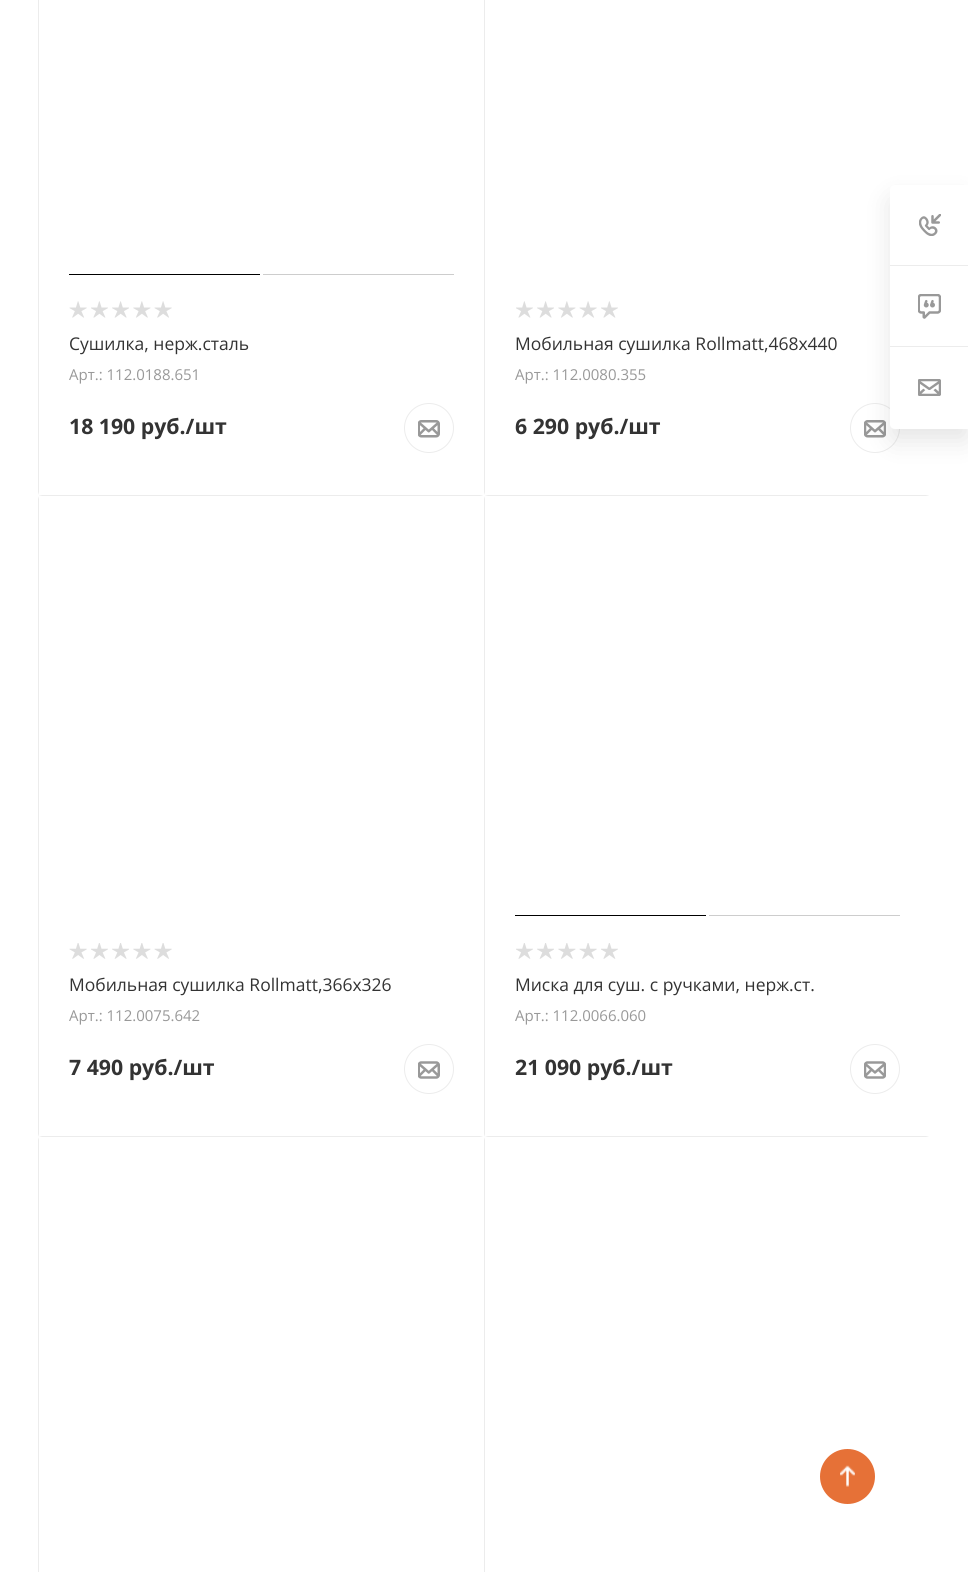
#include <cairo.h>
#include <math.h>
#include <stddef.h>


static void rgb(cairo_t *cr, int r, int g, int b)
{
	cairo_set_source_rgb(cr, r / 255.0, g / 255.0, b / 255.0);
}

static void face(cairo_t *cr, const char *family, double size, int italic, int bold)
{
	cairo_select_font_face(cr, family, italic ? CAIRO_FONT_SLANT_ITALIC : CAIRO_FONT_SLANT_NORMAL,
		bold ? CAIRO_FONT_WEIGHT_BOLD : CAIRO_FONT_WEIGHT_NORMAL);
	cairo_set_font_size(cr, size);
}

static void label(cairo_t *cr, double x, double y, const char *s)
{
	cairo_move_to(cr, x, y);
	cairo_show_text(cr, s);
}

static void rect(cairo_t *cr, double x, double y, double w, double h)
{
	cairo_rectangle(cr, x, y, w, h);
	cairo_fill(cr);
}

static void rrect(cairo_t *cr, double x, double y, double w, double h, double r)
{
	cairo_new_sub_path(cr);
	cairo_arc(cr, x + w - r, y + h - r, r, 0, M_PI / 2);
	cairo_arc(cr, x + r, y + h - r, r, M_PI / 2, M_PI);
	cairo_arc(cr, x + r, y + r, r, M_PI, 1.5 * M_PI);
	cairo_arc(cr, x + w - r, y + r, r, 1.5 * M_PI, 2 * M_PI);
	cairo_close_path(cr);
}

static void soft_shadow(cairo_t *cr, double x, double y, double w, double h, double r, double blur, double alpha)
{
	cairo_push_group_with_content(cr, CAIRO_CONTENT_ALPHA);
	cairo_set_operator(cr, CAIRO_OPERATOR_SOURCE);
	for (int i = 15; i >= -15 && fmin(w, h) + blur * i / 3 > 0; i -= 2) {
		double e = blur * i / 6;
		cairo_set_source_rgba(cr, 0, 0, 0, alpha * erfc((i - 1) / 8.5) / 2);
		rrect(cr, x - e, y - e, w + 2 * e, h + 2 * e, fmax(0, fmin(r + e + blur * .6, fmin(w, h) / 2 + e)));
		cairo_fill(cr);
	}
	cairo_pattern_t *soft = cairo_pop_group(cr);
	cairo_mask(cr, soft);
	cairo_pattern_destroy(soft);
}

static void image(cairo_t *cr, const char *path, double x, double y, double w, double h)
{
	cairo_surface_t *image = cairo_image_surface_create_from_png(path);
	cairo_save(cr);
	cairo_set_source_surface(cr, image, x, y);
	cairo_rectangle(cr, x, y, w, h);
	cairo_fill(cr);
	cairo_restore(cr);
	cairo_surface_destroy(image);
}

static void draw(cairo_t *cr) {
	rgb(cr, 255, 255, 255);
	cairo_paint(cr);
	rgb(cr, 236, 236, 236);
	cairo_set_fill_rule(cr, CAIRO_FILL_RULE_EVEN_ODD);
	cairo_new_path(cr);
	cairo_move_to(cr, 38, -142);
	cairo_line_to(cr, 38, 492);
	cairo_line_to(cr, 39, 495);
	cairo_line_to(cr, 39, -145);
	cairo_close_path(cr);
	cairo_move_to(cr, 42, -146);
	cairo_line_to(cr, 39, -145);
	cairo_line_to(cr, 483, -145);
	cairo_line_to(cr, 480, -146);
	cairo_close_path(cr);
	cairo_move_to(cr, 480, 496);
	cairo_line_to(cr, 483, 495);
	cairo_line_to(cr, 39, 495);
	cairo_line_to(cr, 42, 496);
	cairo_close_path(cr);
	cairo_fill(cr);
	rgb(cr, 0, 0, 0);
	rect(cr, 69, 274, 191, 1);
	rgb(cr, 205, 205, 205);
	rect(cr, 263, 274, 191, 1);
	image(cr, "image0.png", 69, 301, 18, 17);
	image(cr, "image1.png", 91, 301, 17, 17);
	image(cr, "image2.png", 112, 301, 17, 17);
	image(cr, "image3.png", 133, 301, 18, 17);
	image(cr, "image0.png", 154, 301, 18, 17);
	face(cr, "Open Sans", 17.5, 0, 0);
	rgb(cr, 51, 51, 51);
	label(cr, 69, 350, "Сушилка, нерж.сталь");
	face(cr, "Open Sans", 15, 0, 0);
	rgb(cr, 153, 153, 153);
	label(cr, 69, 380, "Арт.: 112.0188.651");
	face(cr, "Open Sans", 21.25, 0, 1);
	rgb(cr, 51, 51, 51);
	label(cr, 69, 434, "18 190 руб./шт");
	cairo_new_path(cr);
	cairo_arc(cr, 429, 428, 24.5, 0, 2 * M_PI);
	rgb(cr, 236, 236, 236);
	cairo_set_line_width(cr, 1);
	cairo_stroke(cr);
	image(cr, "image4.png", 418, 420, 22, 18);
	cairo_new_path(cr);
	cairo_move_to(cr, 484, -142);
	cairo_line_to(cr, 484, 492);
	cairo_line_to(cr, 485, 495);
	cairo_line_to(cr, 485, -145);
	cairo_close_path(cr);
	cairo_move_to(cr, 488, -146);
	cairo_line_to(cr, 485, -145);
	cairo_line_to(cr, 929, -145);
	cairo_line_to(cr, 926, -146);
	cairo_close_path(cr);
	cairo_move_to(cr, 926, 496);
	cairo_line_to(cr, 929, 495);
	cairo_line_to(cr, 485, 495);
	cairo_line_to(cr, 488, 496);
	cairo_close_path(cr);
	cairo_fill(cr);
	image(cr, "image1.png", 516, 301, 17, 17);
	image(cr, "image2.png", 537, 301, 17, 17);
	image(cr, "image3.png", 558, 301, 18, 17);
	image(cr, "image0.png", 579, 301, 18, 17);
	image(cr, "image1.png", 601, 301, 17, 17);
	face(cr, "Open Sans", 17.5, 0, 0);
	rgb(cr, 51, 51, 51);
	label(cr, 515, 350, "Мобильная сушилка Rollmatt,468x440");
	face(cr, "Open Sans", 15, 0, 0);
	rgb(cr, 153, 153, 153);
	label(cr, 515, 380, "Арт.: 112.0080.355");
	face(cr, "Open Sans", 21.25, 0, 1);
	rgb(cr, 51, 51, 51);
	label(cr, 515, 434, "6 290 руб./шт");
	cairo_new_path(cr);
	cairo_arc(cr, 875, 428, 24.5, 0, 2 * M_PI);
	rgb(cr, 236, 236, 236);
	cairo_stroke(cr);
	image(cr, "image5.png", 864, 420, 22, 18);
	rgb(cr, 255, 255, 255);
	rrect(cr, 38, 495, 446, 643, 4);
	cairo_fill(cr);
	rgb(cr, 236, 236, 236);
	cairo_new_path(cr);
	cairo_move_to(cr, 38, 499);
	cairo_line_to(cr, 38, 1134);
	cairo_line_to(cr, 39, 1137);
	cairo_line_to(cr, 39, 496);
	cairo_close_path(cr);
	cairo_move_to(cr, 42, 495);
	cairo_line_to(cr, 39, 496);
	cairo_line_to(cr, 483, 496);
	cairo_line_to(cr, 480, 495);
	cairo_close_path(cr);
	cairo_move_to(cr, 480, 1138);
	cairo_line_to(cr, 483, 1137);
	cairo_line_to(cr, 39, 1137);
	cairo_line_to(cr, 42, 1138);
	cairo_close_path(cr);
	cairo_fill(cr);
	image(cr, "image6.png", 69, 943, 18, 16);
	image(cr, "image7.png", 91, 943, 17, 16);
	image(cr, "image8.png", 112, 943, 17, 16);
	image(cr, "image9.png", 133, 943, 18, 16);
	image(cr, "image6.png", 154, 943, 18, 16);
	face(cr, "Open Sans", 17.5, 0, 0);
	rgb(cr, 51, 51, 51);
	label(cr, 69, 991, "Мобильная сушилка Rollmatt,366x326");
	face(cr, "Open Sans", 15, 0, 0);
	rgb(cr, 153, 153, 153);
	label(cr, 69, 1021, "Арт.: 112.0075.642");
	face(cr, "Open Sans", 21.25, 0, 1);
	rgb(cr, 51, 51, 51);
	label(cr, 69, 1075, "7 490 руб./шт");
	cairo_new_path(cr);
	cairo_arc(cr, 429, 1069, 24.5, 0, 2 * M_PI);
	rgb(cr, 236, 236, 236);
	cairo_stroke(cr);
	image(cr, "image10.png", 418, 1061, 22, 18);
	rgb(cr, 255, 255, 255);
	rrect(cr, 484, 495, 446, 643, 4);
	cairo_fill(cr);
	rgb(cr, 236, 236, 236);
	cairo_new_path(cr);
	cairo_move_to(cr, 484, 499);
	cairo_line_to(cr, 484, 1134);
	cairo_line_to(cr, 485, 1137);
	cairo_line_to(cr, 485, 496);
	cairo_close_path(cr);
	cairo_move_to(cr, 488, 495);
	cairo_line_to(cr, 485, 496);
	cairo_line_to(cr, 929, 496);
	cairo_line_to(cr, 926, 495);
	cairo_close_path(cr);
	cairo_move_to(cr, 926, 1138);
	cairo_line_to(cr, 929, 1137);
	cairo_line_to(cr, 485, 1137);
	cairo_line_to(cr, 488, 1138);
	cairo_close_path(cr);
	cairo_fill(cr);
	rgb(cr, 0, 0, 0);
	rect(cr, 515, 915, 191, 1);
	rgb(cr, 205, 205, 205);
	rect(cr, 709, 915, 191, 1);
	image(cr, "image7.png", 516, 943, 17, 16);
	image(cr, "image8.png", 537, 943, 17, 16);
	image(cr, "image9.png", 558, 943, 18, 16);
	image(cr, "image6.png", 579, 943, 18, 16);
	image(cr, "image7.png", 601, 943, 17, 16);
	face(cr, "Open Sans", 17.5, 0, 0);
	rgb(cr, 51, 51, 51);
	label(cr, 515, 991, "Миска для суш. с ручками, нерж.ст.");
	face(cr, "Open Sans", 15, 0, 0);
	rgb(cr, 153, 153, 153);
	label(cr, 515, 1021, "Арт.: 112.0066.060");
	face(cr, "Open Sans", 21.25, 0, 1);
	rgb(cr, 51, 51, 51);
	label(cr, 515, 1075, "21 090 руб./шт");
	cairo_new_path(cr);
	cairo_arc(cr, 875, 1069, 24.5, 0, 2 * M_PI);
	rgb(cr, 236, 236, 236);
	cairo_stroke(cr);
	image(cr, "image11.png", 864, 1061, 22, 18);
	rgb(cr, 255, 255, 255);
	rrect(cr, 38, 1136, 446, 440, 4);
	cairo_fill(cr);
	rgb(cr, 236, 236, 236);
	cairo_new_path(cr);
	cairo_move_to(cr, 38, 1140);
	cairo_line_to(cr, 38, 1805);
	cairo_line_to(cr, 39, 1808);
	cairo_line_to(cr, 39, 1137);
	cairo_close_path(cr);
	cairo_move_to(cr, 42, 1136);
	cairo_line_to(cr, 39, 1137);
	cairo_line_to(cr, 483, 1137);
	cairo_line_to(cr, 480, 1136);
	cairo_close_path(cr);
	cairo_move_to(cr, 480, 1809);
	cairo_line_to(cr, 483, 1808);
	cairo_line_to(cr, 39, 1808);
	cairo_line_to(cr, 42, 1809);
	cairo_close_path(cr);
	cairo_fill(cr);
	rgb(cr, 255, 255, 255);
	rrect(cr, 484, 1136, 446, 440, 4);
	cairo_fill(cr);
	rgb(cr, 236, 236, 236);
	cairo_new_path(cr);
	cairo_move_to(cr, 484, 1140);
	cairo_line_to(cr, 484, 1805);
	cairo_line_to(cr, 485, 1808);
	cairo_line_to(cr, 485, 1137);
	cairo_close_path(cr);
	cairo_move_to(cr, 488, 1136);
	cairo_line_to(cr, 485, 1137);
	cairo_line_to(cr, 929, 1137);
	cairo_line_to(cr, 926, 1136);
	cairo_close_path(cr);
	cairo_move_to(cr, 926, 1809);
	cairo_line_to(cr, 929, 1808);
	cairo_line_to(cr, 485, 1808);
	cairo_line_to(cr, 488, 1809);
	cairo_close_path(cr);
	cairo_fill(cr);
	rgb(cr, 0, 0, 0);
	soft_shadow(cr, 890, 198, 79, 243, 5, 12.5, 0.1);
	rgb(cr, 255, 255, 255);
	cairo_new_path(cr);
	cairo_move_to(cr, 895, 185);
	cairo_line_to(cr, 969, 185);
	cairo_line_to(cr, 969, 429);
	cairo_line_to(cr, 895, 429);
	cairo_curve_to(cr, 892, 429, 890, 427, 890, 424);
	cairo_line_to(cr, 890, 190);
	cairo_curve_to(cr, 890, 187, 892, 185, 895, 185);
	cairo_close_path(cr);
	cairo_fill(cr);
	rgb(cr, 236, 236, 236);
	rect(cr, 890, 265, 78, 1);
	image(cr, "image12.png", 919, 214, 22, 22);
	rect(cr, 890, 346, 78, 1);
	image(cr, "image13.png", 918, 294, 23, 25);
	image(cr, "image14.png", 918, 379, 23, 17);
	rgb(cr, 230, 113, 55);
	cairo_arc(cr, 847.5, 1476.5, 27.5, 0, 2 * M_PI);
	cairo_fill(cr);
	image(cr, "image15.png", 840, 1465, 15, 22);
}

int main(void) {
	cairo_surface_t *surface = cairo_image_surface_create(CAIRO_FORMAT_RGB24, 968, 1572);
	cairo_t *cr = cairo_create(surface);
	cairo_font_options_t *options = cairo_font_options_create();
	cairo_font_options_set_hint_metrics(options, CAIRO_HINT_METRICS_OFF);
	cairo_font_options_set_hint_style(options, CAIRO_HINT_STYLE_NONE);
	cairo_set_font_options(cr, options);
	cairo_set_miter_limit(cr, 4);
	draw(cr);
	cairo_surface_write_to_png(surface, "render.png");
	cairo_font_options_destroy(options);
	cairo_destroy(cr);
	cairo_surface_destroy(surface);
	return 0;
}
